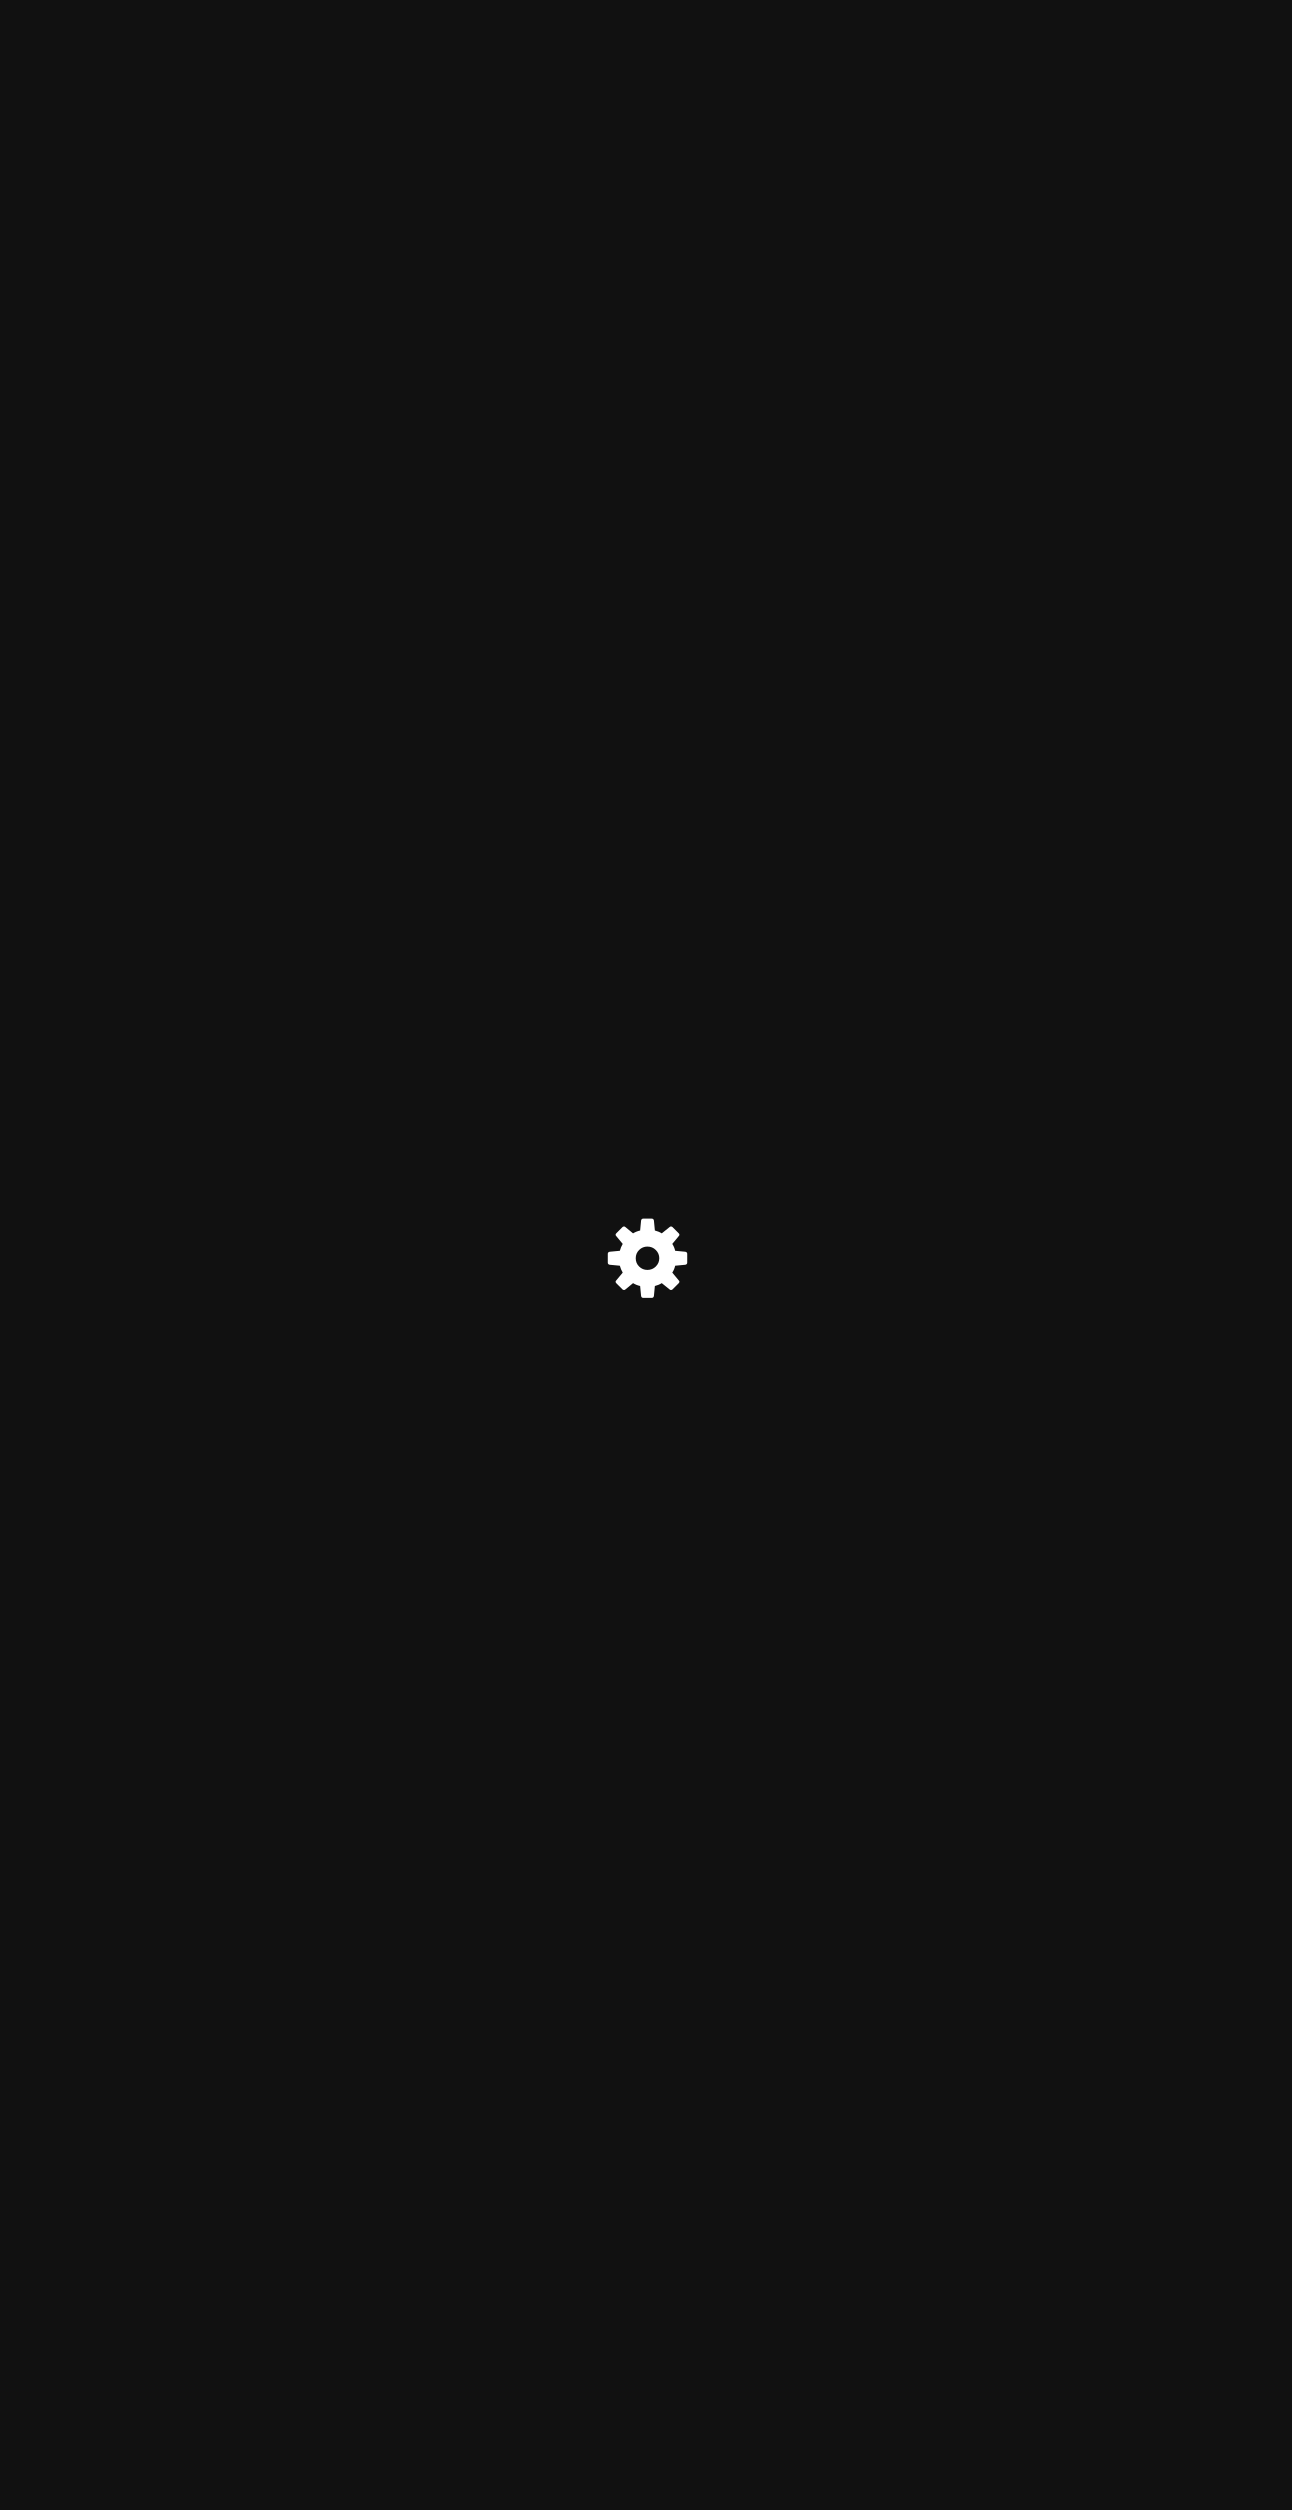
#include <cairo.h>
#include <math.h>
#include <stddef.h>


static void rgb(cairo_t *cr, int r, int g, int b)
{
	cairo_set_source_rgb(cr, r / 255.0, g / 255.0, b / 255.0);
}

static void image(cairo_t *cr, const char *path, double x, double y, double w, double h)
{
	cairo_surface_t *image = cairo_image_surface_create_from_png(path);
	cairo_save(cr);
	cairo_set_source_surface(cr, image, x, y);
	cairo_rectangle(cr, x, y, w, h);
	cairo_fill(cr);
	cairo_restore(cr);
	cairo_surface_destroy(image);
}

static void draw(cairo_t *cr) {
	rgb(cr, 17, 17, 17);
	cairo_paint(cr);
	image(cr, "image0.png", 607, 1218, 81, 80);
}

int main(void) {
	cairo_surface_t *surface = cairo_image_surface_create(CAIRO_FORMAT_RGB24, 1292, 2510);
	cairo_t *cr = cairo_create(surface);
	cairo_font_options_t *options = cairo_font_options_create();
	cairo_font_options_set_hint_metrics(options, CAIRO_HINT_METRICS_OFF);
	cairo_font_options_set_hint_style(options, CAIRO_HINT_STYLE_NONE);
	cairo_set_font_options(cr, options);
	cairo_set_miter_limit(cr, 4);
	draw(cr);
	cairo_surface_write_to_png(surface, "render.png");
	cairo_font_options_destroy(options);
	cairo_destroy(cr);
	cairo_surface_destroy(surface);
	return 0;
}
